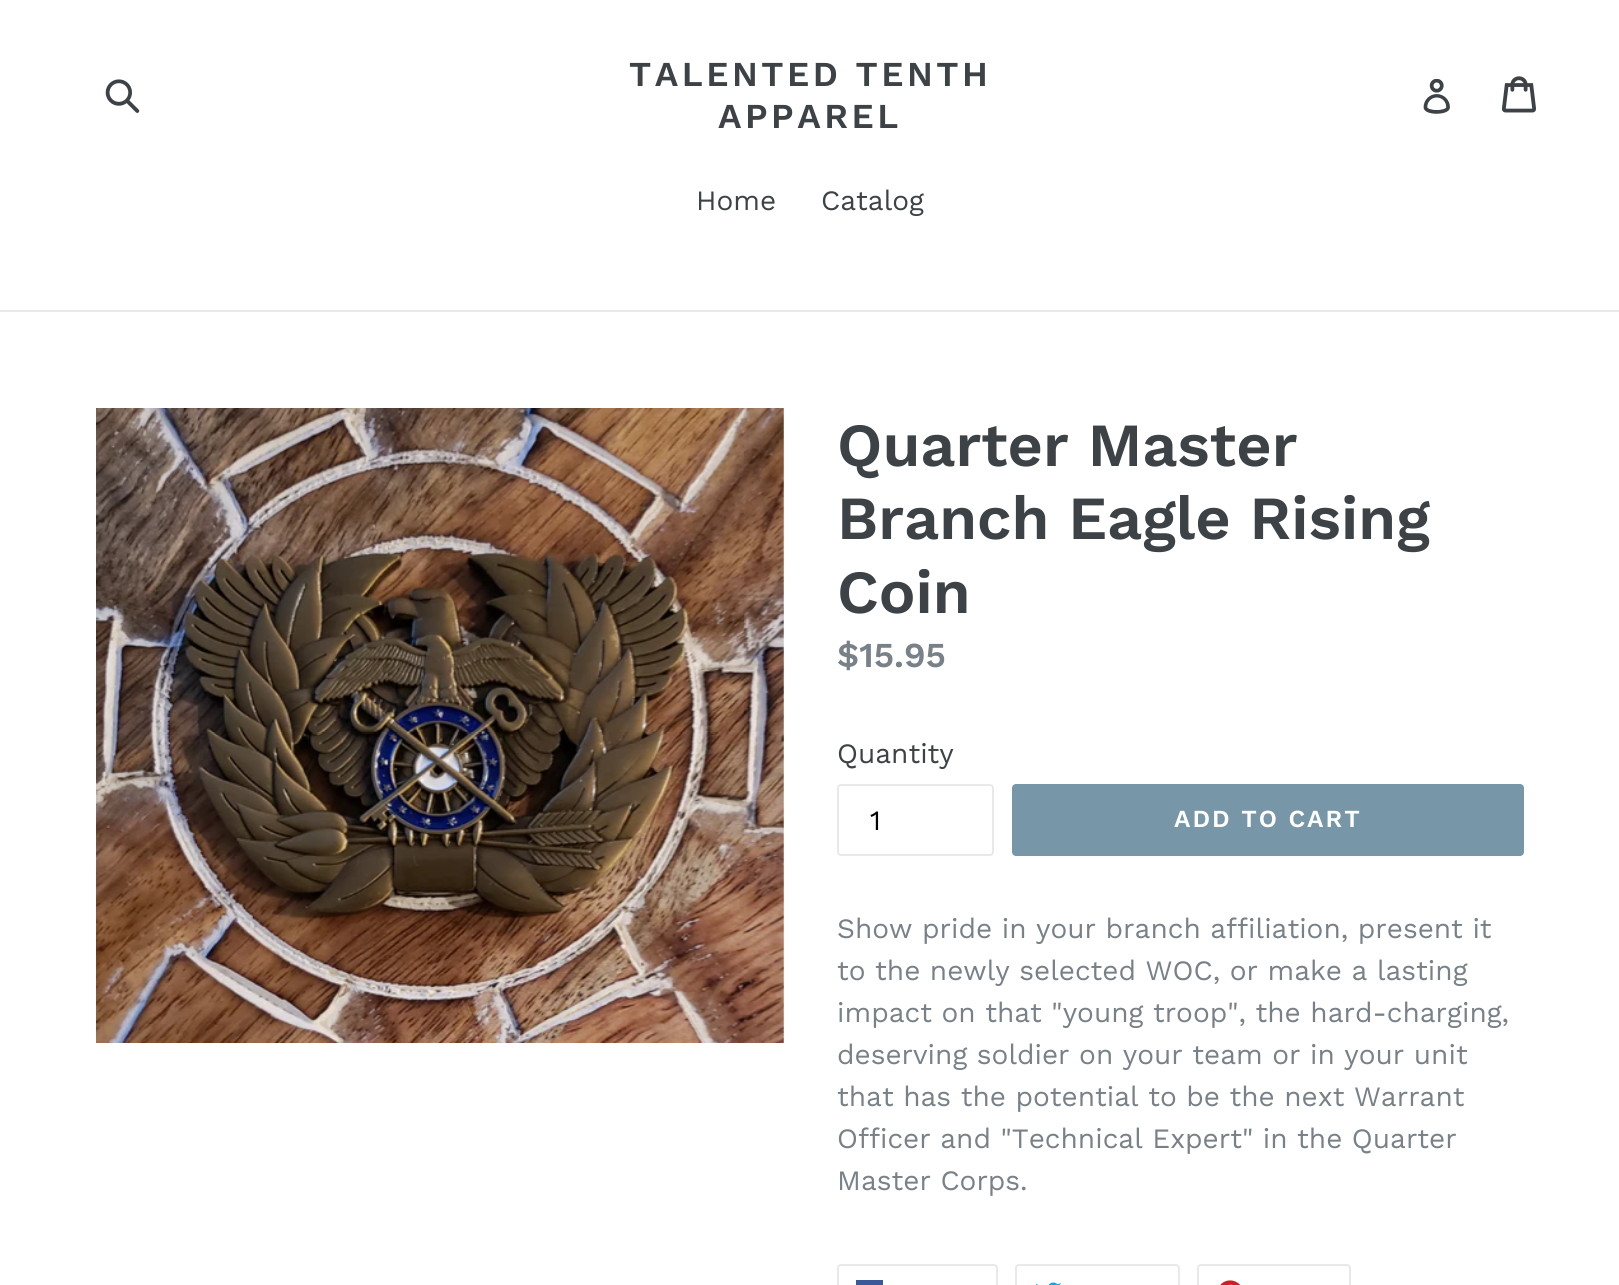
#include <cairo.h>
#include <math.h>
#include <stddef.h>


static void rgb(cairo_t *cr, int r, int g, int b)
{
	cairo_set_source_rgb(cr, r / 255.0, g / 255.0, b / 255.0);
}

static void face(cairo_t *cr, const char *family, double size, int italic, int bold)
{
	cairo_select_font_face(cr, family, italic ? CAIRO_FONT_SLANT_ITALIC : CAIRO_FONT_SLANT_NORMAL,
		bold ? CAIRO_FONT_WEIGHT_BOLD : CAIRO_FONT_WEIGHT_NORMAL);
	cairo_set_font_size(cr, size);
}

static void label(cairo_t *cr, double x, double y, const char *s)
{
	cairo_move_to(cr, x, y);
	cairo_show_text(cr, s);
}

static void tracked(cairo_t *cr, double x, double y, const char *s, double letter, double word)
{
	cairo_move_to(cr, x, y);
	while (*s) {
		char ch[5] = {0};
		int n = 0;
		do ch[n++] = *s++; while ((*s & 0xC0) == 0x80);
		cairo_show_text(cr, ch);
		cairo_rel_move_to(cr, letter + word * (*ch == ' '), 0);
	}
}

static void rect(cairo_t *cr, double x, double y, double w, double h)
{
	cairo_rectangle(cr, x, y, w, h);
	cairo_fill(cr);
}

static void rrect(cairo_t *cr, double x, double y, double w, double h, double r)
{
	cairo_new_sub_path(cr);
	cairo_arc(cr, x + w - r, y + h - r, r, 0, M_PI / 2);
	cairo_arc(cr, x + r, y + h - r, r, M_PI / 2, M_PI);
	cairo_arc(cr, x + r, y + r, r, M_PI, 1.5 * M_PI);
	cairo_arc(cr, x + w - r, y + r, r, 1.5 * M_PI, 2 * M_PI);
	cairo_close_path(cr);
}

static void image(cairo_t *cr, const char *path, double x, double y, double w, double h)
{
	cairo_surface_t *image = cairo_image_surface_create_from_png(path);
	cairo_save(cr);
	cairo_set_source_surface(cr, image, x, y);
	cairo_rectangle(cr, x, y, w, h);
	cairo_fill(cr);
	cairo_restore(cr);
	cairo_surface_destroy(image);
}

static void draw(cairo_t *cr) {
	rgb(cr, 255, 255, 255);
	cairo_paint(cr);
	image(cr, "image0.png", 105, 79, 35, 34);
	face(cr, "Work Sans SemiBold", 35, 0, 0);
	rgb(cr, 61, 66, 70);
	tracked(cr, 629, 86, "TALENTED TENTH", 3.5, 0);
	tracked(cr, 718, 128, "APPAREL", 3.5, 0);
	image(cr, "image1.png", 1423, 79, 27, 35);
	image(cr, "image2.png", 1502, 76, 34, 37);
	rgb(cr, 232, 233, 235);
	rect(cr, 0, 310, 1619, 2);
	face(cr, "Work Sans", 28, 0, 0);
	rgb(cr, 61, 66, 70);
	label(cr, 696, 210, "Home");
	label(cr, 821, 210, "Catalog");
	image(cr, "image3.png", 96, 408, 688, 635);
	face(cr, "Work Sans SemiBold", 61.25, 0, 0);
	label(cr, 837, 466, "Quarter Master");
	label(cr, 837, 539, "Branch Eagle Rising");
	label(cr, 837, 613, "Coin");
	face(cr, "Work Sans SemiBold", 35, 0, 0);
	rgb(cr, 120, 129, 136);
	label(cr, 837, 667, "$15.95");
	face(cr, "Work Sans", 28, 0, 0);
	rgb(cr, 61, 66, 70);
	label(cr, 837, 763, "Quantity");
	rrect(cr, 838, 785, 155, 70, 3);
	rgb(cr, 232, 233, 235);
	cairo_stroke(cr);
	rgb(cr, 0, 0, 0);
	label(cr, 870, 830, "1");
	rgb(cr, 119, 150, 168);
	rrect(cr, 1012, 784, 512, 72, 4);
	cairo_fill(cr);
	face(cr, "Work Sans SemiBold", 24.5, 0, 0);
	rgb(cr, 255, 255, 255);
	tracked(cr, 1174, 827, "ADD TO CART", 2, 0);
	face(cr, "Work Sans", 28, 0, 0);
	rgb(cr, 120, 129, 136);
	label(cr, 837, 938, "Show pride in your branch affiliation, present it");
	label(cr, 837, 980, "to the newly selected WOC, or make a lasting");
	label(cr, 837, 1022, "impact on that \"young troop\", the hard-charging,");
	label(cr, 837, 1064, "deserving soldier on your team or in your unit");
	label(cr, 837, 1106, "that has the potential to be the next Warrant");
	label(cr, 837, 1148, "Officer and \"Technical Expert\" in the Quarter");
	label(cr, 837, 1190, "Master Corps.");
	rrect(cr, 838, 1265, 159, 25, 3);
	rgb(cr, 232, 233, 235);
	cairo_stroke(cr);
	rgb(cr, 59, 89, 152);
	rect(cr, 856, 1280, 27, 5);
	rrect(cr, 1016, 1265, 163, 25, 3);
	rgb(cr, 232, 233, 235);
	cairo_stroke(cr);
	image(cr, "image4.png", 1036, 1282, 25, 3);
	rrect(cr, 1198, 1265, 152, 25, 3);
	cairo_stroke(cr);
	image(cr, "image5.png", 1220, 1280, 20, 5);
}

int main(void) {
	cairo_surface_t *surface = cairo_image_surface_create(CAIRO_FORMAT_RGB24, 1619, 1285);
	cairo_t *cr = cairo_create(surface);
	cairo_font_options_t *options = cairo_font_options_create();
	cairo_font_options_set_hint_metrics(options, CAIRO_HINT_METRICS_OFF);
	cairo_font_options_set_hint_style(options, CAIRO_HINT_STYLE_NONE);
	cairo_set_font_options(cr, options);
	cairo_set_miter_limit(cr, 4);
	draw(cr);
	cairo_surface_write_to_png(surface, "render.png");
	cairo_font_options_destroy(options);
	cairo_destroy(cr);
	cairo_surface_destroy(surface);
	return 0;
}
